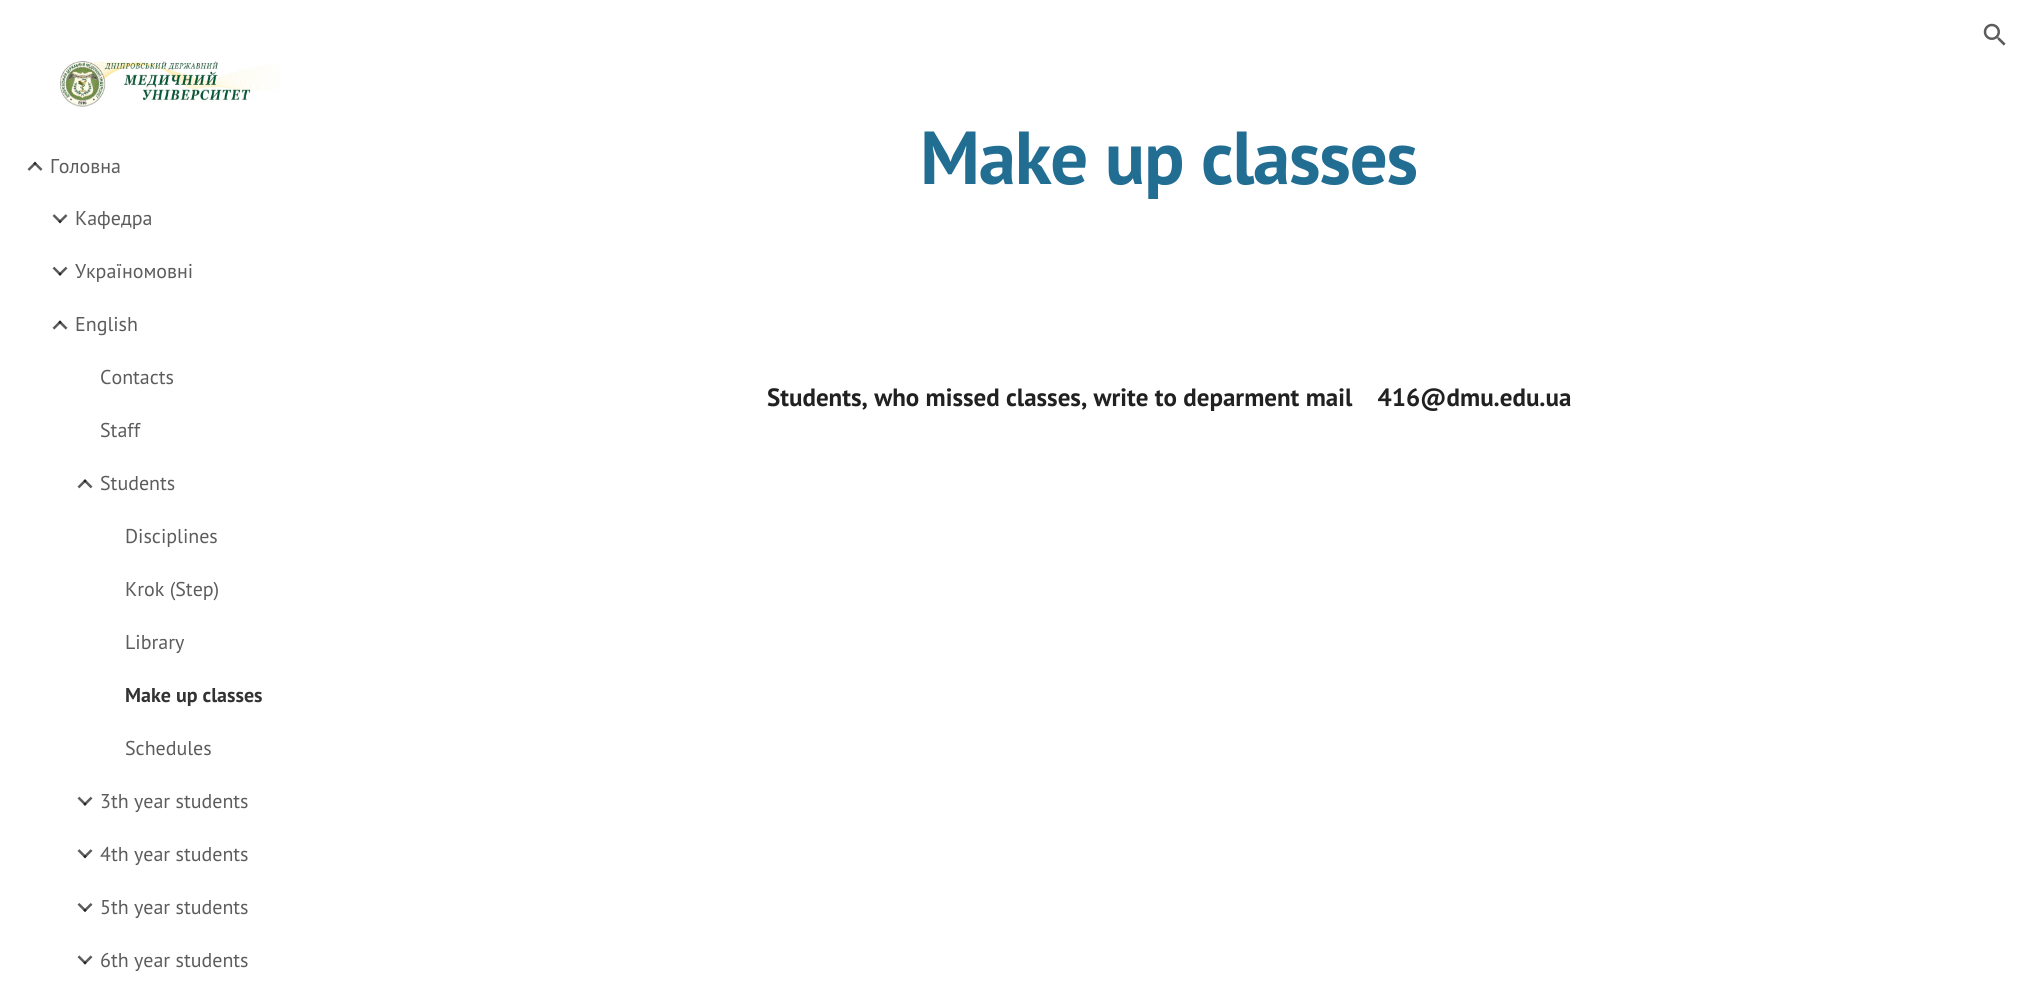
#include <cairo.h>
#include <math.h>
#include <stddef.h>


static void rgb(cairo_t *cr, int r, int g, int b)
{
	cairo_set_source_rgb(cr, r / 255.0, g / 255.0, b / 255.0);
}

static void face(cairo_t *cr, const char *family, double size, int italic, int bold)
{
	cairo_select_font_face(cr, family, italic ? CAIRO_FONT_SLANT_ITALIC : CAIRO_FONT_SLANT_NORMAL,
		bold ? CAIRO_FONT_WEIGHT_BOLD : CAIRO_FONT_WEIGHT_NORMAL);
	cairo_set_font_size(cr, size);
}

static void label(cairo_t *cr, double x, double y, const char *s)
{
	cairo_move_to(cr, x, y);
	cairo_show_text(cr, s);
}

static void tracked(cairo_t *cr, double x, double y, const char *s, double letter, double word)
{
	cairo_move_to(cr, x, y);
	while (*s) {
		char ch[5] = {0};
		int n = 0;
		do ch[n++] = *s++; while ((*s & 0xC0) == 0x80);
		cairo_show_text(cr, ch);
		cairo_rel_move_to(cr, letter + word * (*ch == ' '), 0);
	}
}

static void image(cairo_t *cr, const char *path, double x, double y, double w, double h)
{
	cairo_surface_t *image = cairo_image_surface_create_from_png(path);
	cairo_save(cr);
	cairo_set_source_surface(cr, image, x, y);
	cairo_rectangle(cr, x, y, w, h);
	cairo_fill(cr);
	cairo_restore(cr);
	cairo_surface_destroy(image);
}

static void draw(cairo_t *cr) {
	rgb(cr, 255, 255, 255);
	cairo_paint(cr);
	image(cr, "image0.png", 1983, 23, 23, 23);
	image(cr, "image1.png", 60, 61, 220, 46);
	image(cr, "image2.png", 27, 161, 16, 10);
	face(cr, "PT Sans", 20, 0, 0);
	rgb(cr, 92, 92, 92);
	label(cr, 50, 173, "Головна");
	image(cr, "image3.png", 52, 214, 16, 10);
	label(cr, 75, 225, "Кафедра");
	image(cr, "image4.png", 52, 266, 16, 10);
	label(cr, 75, 278, "Україномовні");
	image(cr, "image5.png", 52, 320, 16, 10);
	label(cr, 75, 331, "English");
	label(cr, 100, 384, "Contacts");
	label(cr, 100, 437, "Staff");
	image(cr, "image6.png", 77, 479, 16, 10);
	label(cr, 100, 490, "Students");
	label(cr, 125, 543, "Disciplines");
	label(cr, 125, 596, "Krok (Step)");
	label(cr, 125, 649, "Library");
	face(cr, "PT Sans", 20, 0, 1);
	rgb(cr, 51, 51, 51);
	label(cr, 125, 702, "Make up classes");
	face(cr, "PT Sans", 20, 0, 0);
	rgb(cr, 92, 92, 92);
	label(cr, 125, 755, "Schedules");
	image(cr, "image4.png", 77, 796, 16, 10);
	label(cr, 100, 808, "3th year students");
	image(cr, "image3.png", 77, 849, 16, 10);
	label(cr, 100, 861, "4th year students");
	image(cr, "image7.png", 77, 903, 16, 9);
	label(cr, 100, 914, "5th year students");
	image(cr, "image8.png", 77, 955, 16, 10);
	label(cr, 100, 967, "6th year students");
	face(cr, "PT Sans", 75, 0, 1);
	rgb(cr, 34, 110, 147);
	tracked(cr, 920, 184, "Make up classes", -1.25, 0);
	face(cr, "PT Sans", 25, 0, 1);
	rgb(cr, 33, 33, 33);
	label(cr, 767, 406, "Students, who missed classes, write to deparment mail    416@dmu.edu.ua");
}

int main(void) {
	cairo_surface_t *surface = cairo_image_surface_create(CAIRO_FORMAT_RGB24, 2025, 1008);
	cairo_t *cr = cairo_create(surface);
	cairo_font_options_t *options = cairo_font_options_create();
	cairo_font_options_set_hint_metrics(options, CAIRO_HINT_METRICS_OFF);
	cairo_font_options_set_hint_style(options, CAIRO_HINT_STYLE_NONE);
	cairo_set_font_options(cr, options);
	cairo_set_miter_limit(cr, 4);
	draw(cr);
	cairo_surface_write_to_png(surface, "render.png");
	cairo_font_options_destroy(options);
	cairo_destroy(cr);
	cairo_surface_destroy(surface);
	return 0;
}
